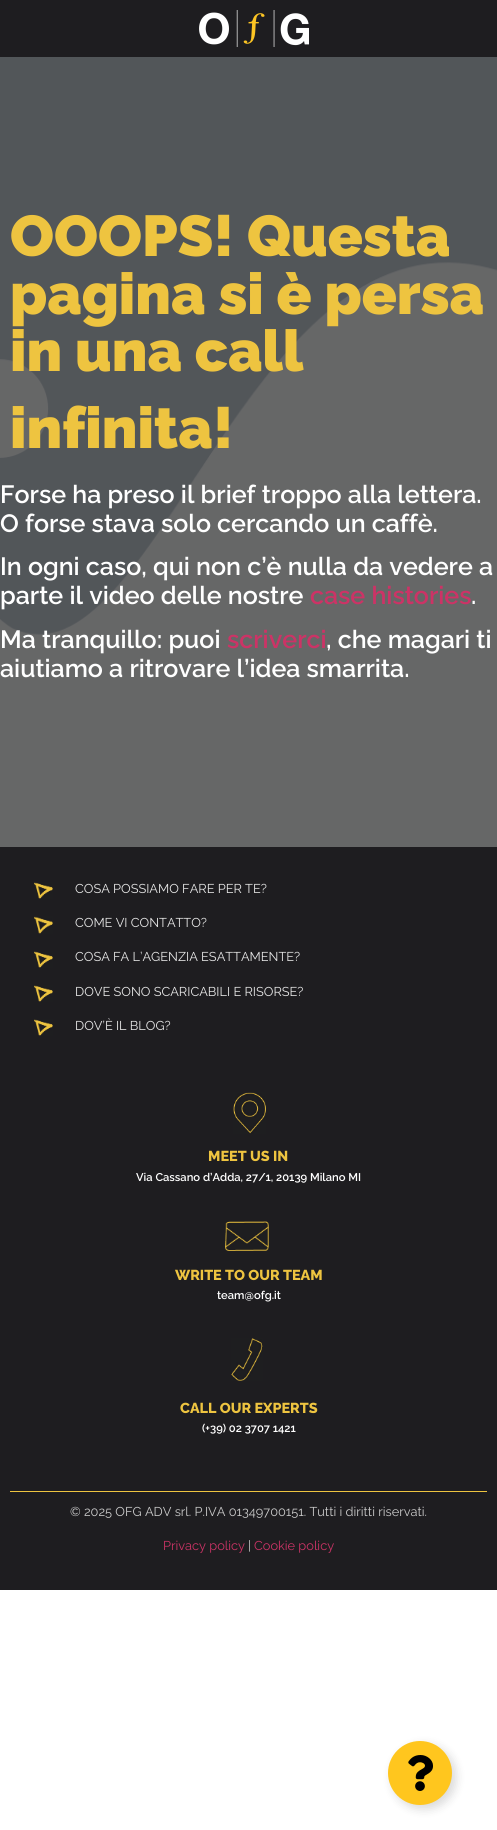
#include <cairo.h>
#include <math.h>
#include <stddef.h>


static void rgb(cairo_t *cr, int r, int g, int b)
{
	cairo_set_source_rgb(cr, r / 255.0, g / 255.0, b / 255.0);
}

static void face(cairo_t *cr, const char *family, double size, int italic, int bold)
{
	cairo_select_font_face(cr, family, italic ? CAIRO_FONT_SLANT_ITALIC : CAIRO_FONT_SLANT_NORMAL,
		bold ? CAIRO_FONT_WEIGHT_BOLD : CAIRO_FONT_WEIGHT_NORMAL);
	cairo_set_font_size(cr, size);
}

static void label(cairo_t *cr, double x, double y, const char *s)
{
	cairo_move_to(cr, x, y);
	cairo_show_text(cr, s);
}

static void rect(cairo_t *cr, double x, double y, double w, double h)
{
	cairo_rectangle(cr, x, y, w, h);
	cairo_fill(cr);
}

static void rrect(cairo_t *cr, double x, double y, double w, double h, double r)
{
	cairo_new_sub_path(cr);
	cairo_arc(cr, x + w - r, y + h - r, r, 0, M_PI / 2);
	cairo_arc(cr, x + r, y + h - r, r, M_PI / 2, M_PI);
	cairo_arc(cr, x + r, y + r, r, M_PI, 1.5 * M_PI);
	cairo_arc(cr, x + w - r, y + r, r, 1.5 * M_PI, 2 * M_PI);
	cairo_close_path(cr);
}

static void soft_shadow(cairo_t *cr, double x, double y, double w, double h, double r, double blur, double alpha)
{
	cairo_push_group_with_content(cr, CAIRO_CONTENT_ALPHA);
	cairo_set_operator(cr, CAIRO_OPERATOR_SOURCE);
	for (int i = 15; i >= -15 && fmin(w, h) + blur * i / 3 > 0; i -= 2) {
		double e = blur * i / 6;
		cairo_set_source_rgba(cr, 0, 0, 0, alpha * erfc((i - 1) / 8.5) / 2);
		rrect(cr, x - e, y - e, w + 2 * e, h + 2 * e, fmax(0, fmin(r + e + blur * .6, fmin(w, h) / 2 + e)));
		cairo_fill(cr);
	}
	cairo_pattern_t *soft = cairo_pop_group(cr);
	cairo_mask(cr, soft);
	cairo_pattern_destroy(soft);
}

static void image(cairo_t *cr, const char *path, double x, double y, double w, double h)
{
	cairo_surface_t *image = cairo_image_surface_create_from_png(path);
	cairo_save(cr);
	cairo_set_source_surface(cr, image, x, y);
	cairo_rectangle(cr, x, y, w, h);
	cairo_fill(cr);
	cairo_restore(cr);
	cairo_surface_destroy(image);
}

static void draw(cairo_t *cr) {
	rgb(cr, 255, 255, 255);
	cairo_paint(cr);
	rgb(cr, 30, 29, 32);
	rect(cr, 0, 0, 497, 57);
	image(cr, "image0.png", 199, 10, 110, 37);
	image(cr, "image1.png", 0, 57, 497, 790);
	face(cr, "Raleway Black", 57.5, 0, 0);
	rgb(cr, 238, 196, 64);
	label(cr, 10, 256, "OOOPS! Questa");
	label(cr, 10, 314, "pagina si è persa");
	label(cr, 10, 371, "in una call");
	label(cr, 10, 448, "infinita!");
	face(cr, "Raleway SemiBold", 25, 0, 0);
	rgb(cr, 255, 255, 255);
	label(cr, 0, 503, "Forse ha preso il brief troppo alla lettera.");
	label(cr, 0, 532, "O forse stava solo cercando un caffè.");
	label(cr, 0, 575, "In ogni caso, qui non c’è nulla da vedere a");
	label(cr, 0, 604, "parte il video delle nostre");
	rgb(cr, 204, 51, 102);
	label(cr, 310, 604, "case histories");
	rgb(cr, 255, 255, 255);
	label(cr, 471, 604, ".");
	label(cr, 0, 648, "Ma tranquillo: puoi");
	rgb(cr, 204, 51, 102);
	label(cr, 227, 648, "scriverci");
	rgb(cr, 255, 255, 255);
	label(cr, 326, 648, ", che magari ti");
	label(cr, 0, 677, "aiutiamo a ritrovare l’idea smarrita.");
	rgb(cr, 30, 29, 32);
	rect(cr, 0, 847, 497, 743);
	image(cr, "image2.png", 34, 882, 19, 17);
	face(cr, "Raleway", 12.8, 0, 0);
	rgb(cr, 231, 231, 231);
	label(cr, 75, 893, "COSA POSSIAMO FARE PER TE?");
	image(cr, "image3.png", 34, 916, 19, 18);
	label(cr, 75, 927, "COME VI CONTATTO?");
	image(cr, "image2.png", 34, 951, 19, 17);
	label(cr, 75, 961, "COSA FA L’AGENZIA ESATTAMENTE?");
	image(cr, "image2.png", 34, 985, 19, 17);
	label(cr, 75, 996, "DOVE SONO SCARICABILI E RISORSE?");
	image(cr, "image2.png", 34, 1019, 19, 17);
	label(cr, 75, 1030, "DOV’È IL BLOG?");
	image(cr, "image4.png", 233, 1092, 33, 42);
	face(cr, "Raleway ExtraBold", 14.4, 0, 0);
	rgb(cr, 238, 196, 64);
	label(cr, 208, 1161, "MEET US IN");
	face(cr, "Raleway SemiBold", 11.2, 0, 0);
	rgb(cr, 255, 255, 255);
	label(cr, 136, 1181, "Via Cassano d’Adda, 27/1, 20139 Milano MI");
	image(cr, "image5.png", 225, 1221, 44, 30);
	face(cr, "Raleway ExtraBold", 14.4, 0, 0);
	rgb(cr, 238, 196, 64);
	label(cr, 175, 1280, "WRITE TO OUR TEAM");
	face(cr, "Raleway SemiBold", 11.2, 0, 0);
	rgb(cr, 255, 255, 255);
	label(cr, 217, 1299, "team@ofg.it");
	image(cr, "image6.png", 231, 1338, 32, 43);
	face(cr, "Raleway ExtraBold", 14.4, 0, 0);
	rgb(cr, 238, 196, 64);
	label(cr, 180, 1413, "CALL OUR EXPERTS");
	face(cr, "Raleway SemiBold", 11.2, 0, 0);
	rgb(cr, 255, 255, 255);
	label(cr, 202, 1432, "(+39) 02 3707 1421");
	rgb(cr, 238, 196, 64);
	rect(cr, 10, 1491, 477, 1);
	face(cr, "Raleway", 12.8, 0, 0);
	rgb(cr, 203, 203, 203);
	label(cr, 70, 1516, "© 2025 OFG ADV srl. P.IVA 01349700151. Tutti i diritti riservati.");
	rgb(cr, 204, 51, 102);
	label(cr, 163, 1550, "Privacy policy");
	rgb(cr, 203, 203, 203);
	label(cr, 248, 1550, "|");
	rgb(cr, 204, 51, 102);
	label(cr, 254, 1550, "Cookie policy");
	rgb(cr, 0, 0, 0);
	soft_shadow(cr, 392, 1745, 64, 64, 32, 5, 0.15);
	rgb(cr, 255, 198, 30);
	cairo_arc(cr, 420, 1773, 32, 0, 2 * M_PI);
	cairo_fill(cr);
	image(cr, "image7.png", 408, 1755, 25, 36);
}

int main(void) {
	cairo_surface_t *surface = cairo_image_surface_create(CAIRO_FORMAT_RGB24, 497, 1830);
	cairo_t *cr = cairo_create(surface);
	cairo_font_options_t *options = cairo_font_options_create();
	cairo_font_options_set_hint_metrics(options, CAIRO_HINT_METRICS_OFF);
	cairo_font_options_set_hint_style(options, CAIRO_HINT_STYLE_NONE);
	cairo_set_font_options(cr, options);
	cairo_set_miter_limit(cr, 4);
	draw(cr);
	cairo_surface_write_to_png(surface, "render.png");
	cairo_font_options_destroy(options);
	cairo_destroy(cr);
	cairo_surface_destroy(surface);
	return 0;
}
